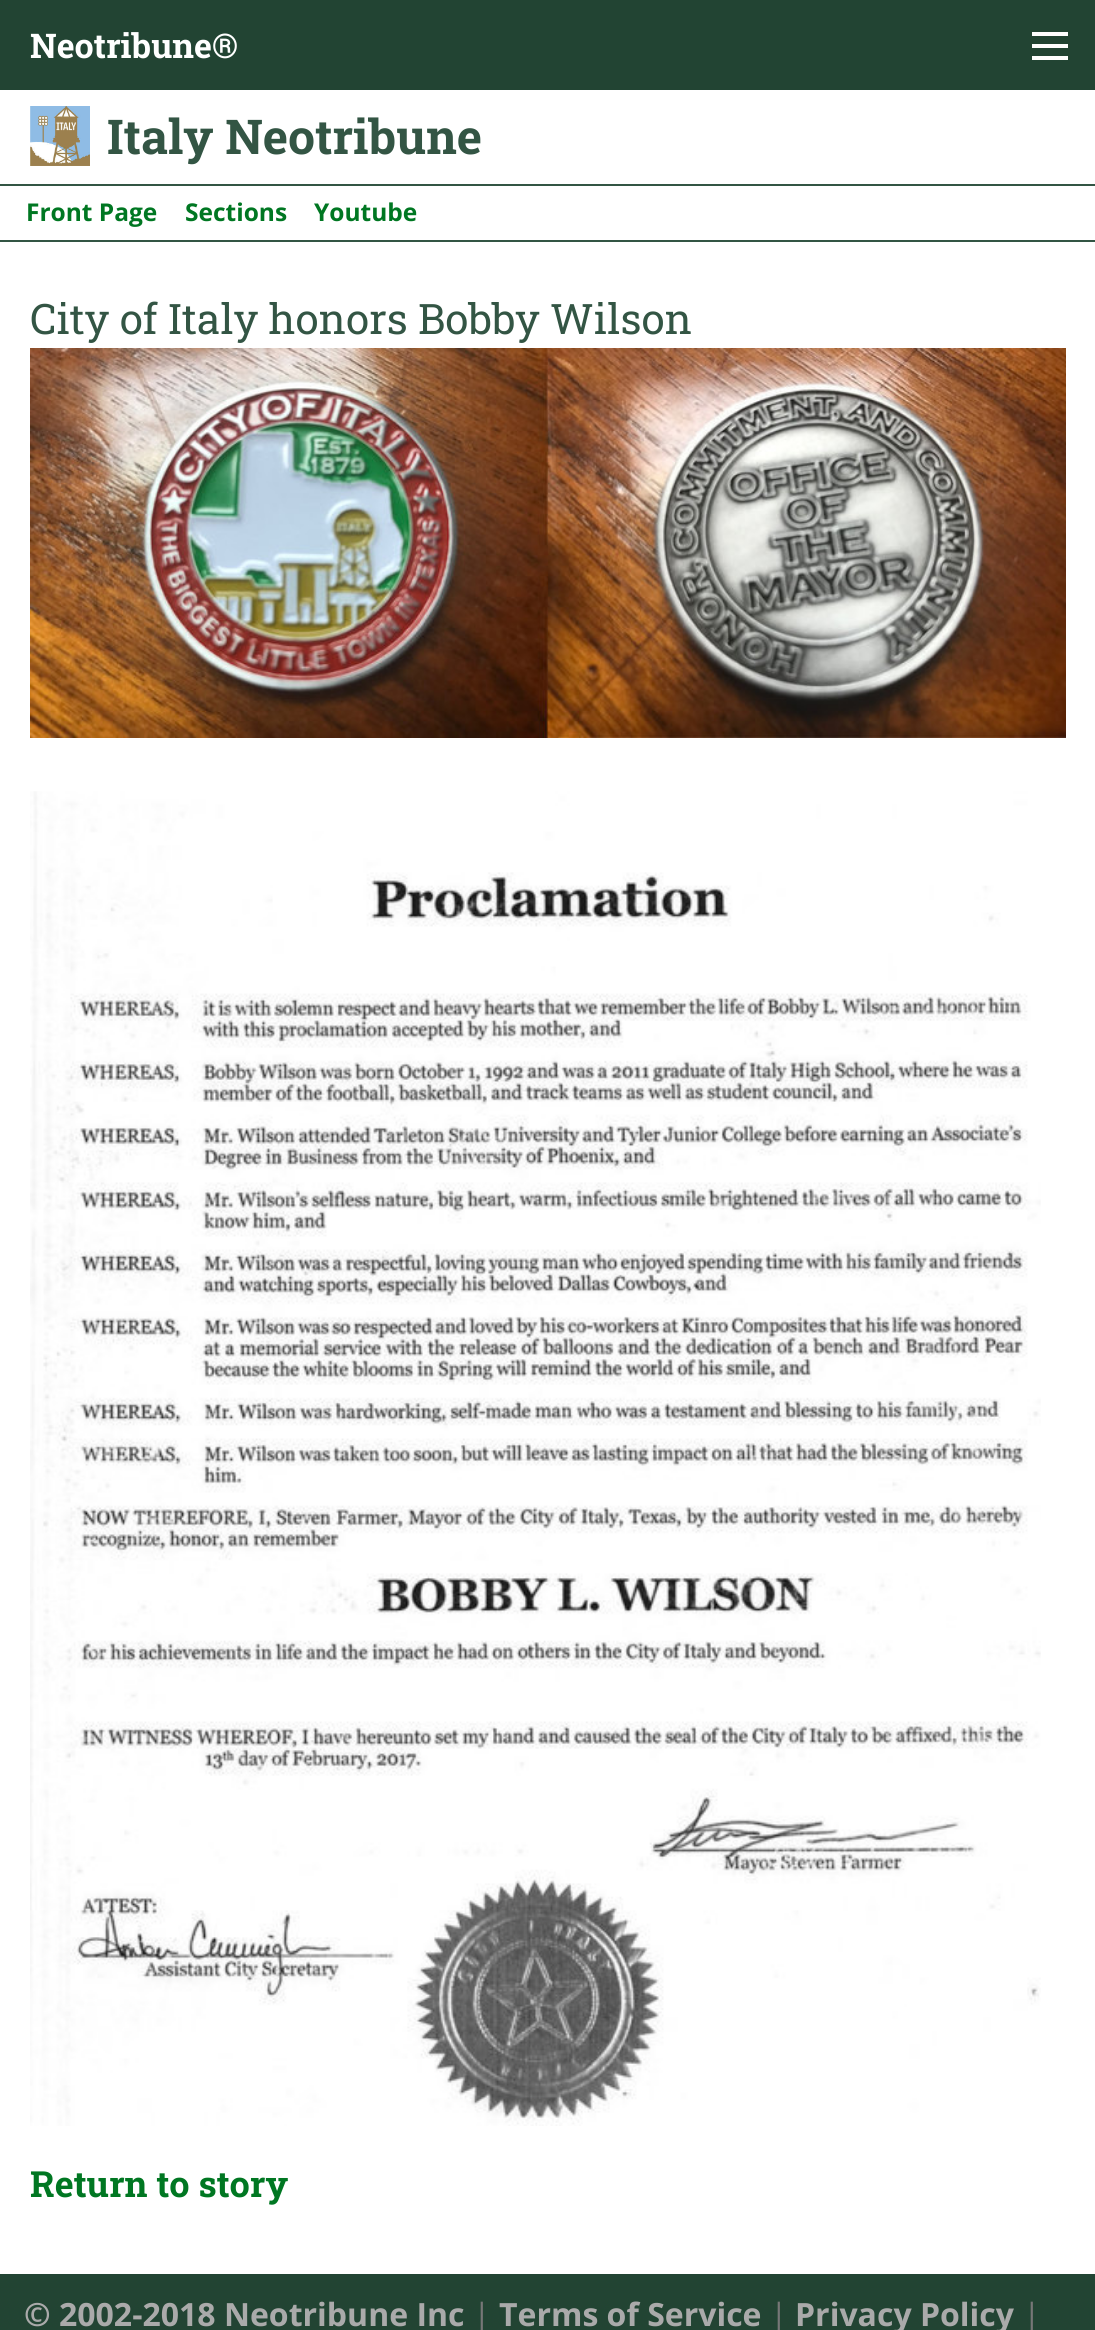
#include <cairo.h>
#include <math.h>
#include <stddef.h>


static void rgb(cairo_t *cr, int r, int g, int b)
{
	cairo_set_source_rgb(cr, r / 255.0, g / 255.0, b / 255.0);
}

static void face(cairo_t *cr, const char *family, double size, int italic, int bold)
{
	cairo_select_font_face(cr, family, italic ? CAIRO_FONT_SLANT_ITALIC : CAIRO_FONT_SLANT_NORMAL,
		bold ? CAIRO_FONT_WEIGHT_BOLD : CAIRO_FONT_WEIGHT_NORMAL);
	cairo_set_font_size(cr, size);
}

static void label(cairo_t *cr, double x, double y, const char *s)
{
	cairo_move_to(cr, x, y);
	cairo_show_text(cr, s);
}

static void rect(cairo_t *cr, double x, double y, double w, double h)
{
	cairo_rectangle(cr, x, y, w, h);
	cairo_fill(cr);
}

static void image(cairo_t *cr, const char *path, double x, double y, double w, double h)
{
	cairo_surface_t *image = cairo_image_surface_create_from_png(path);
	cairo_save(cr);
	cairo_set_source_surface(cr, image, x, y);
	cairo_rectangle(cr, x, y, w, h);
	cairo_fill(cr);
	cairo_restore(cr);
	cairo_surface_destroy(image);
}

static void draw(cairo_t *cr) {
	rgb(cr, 255, 255, 255);
	cairo_paint(cr);
	rgb(cr, 34, 68, 51);
	rect(cr, 0, 0, 1095, 90);
	face(cr, "Roboto Slab", 34, 0, 1);
	rgb(cr, 255, 255, 255);
	label(cr, 30, 58, "Neotribune®");
	rect(cr, 1032, 56, 36, 4);
	rect(cr, 1032, 44, 36, 4);
	rect(cr, 1032, 32, 36, 4);
	image(cr, "image0.png", 30, 106, 60, 60);
	face(cr, "Roboto Slab", 48, 0, 1);
	rgb(cr, 51, 85, 68);
	label(cr, 107, 154, "Italy Neotribune");
	rect(cr, 0, 184, 1095, 2);
	rect(cr, 0, 240, 1095, 2);
	face(cr, "Open Sans", 24.5, 0, 1);
	rgb(cr, 0, 119, 34);
	label(cr, 26, 221, "Front Page");
	label(cr, 185, 221, "Sections");
	label(cr, 314, 221, "Youtube");
	face(cr, "Roboto Slab", 42, 0, 0);
	rgb(cr, 51, 85, 68);
	label(cr, 30, 334, "City of Italy honors Bobby Wilson");
	image(cr, "image1.png", 30, 348, 1036, 390);
	image(cr, "image2.png", 30, 791, 1011, 1335);
	face(cr, "Roboto Slab", 36, 0, 1);
	rgb(cr, 0, 119, 34);
	label(cr, 30, 2197, "Return to story");
	rgb(cr, 34, 68, 51);
	rect(cr, 0, 2274, 1095, 56);
	face(cr, "Open Sans", 32, 0, 1);
	rgb(cr, 170, 170, 170);
	label(cr, 24, 2326, "© 2002-2018 Neotribune Inc");
	face(cr, "Open Sans", 32, 0, 0);
	rgb(cr, 119, 119, 119);
	label(cr, 473, 2326, "|");
	face(cr, "Open Sans", 32, 0, 1);
	rgb(cr, 170, 170, 170);
	label(cr, 499, 2326, "Terms of Service");
	face(cr, "Open Sans", 32, 0, 0);
	rgb(cr, 119, 119, 119);
	label(cr, 770, 2326, "|");
	face(cr, "Open Sans", 32, 0, 1);
	rgb(cr, 170, 170, 170);
	label(cr, 795, 2326, "Privacy Policy");
	face(cr, "Open Sans", 32, 0, 0);
	rgb(cr, 119, 119, 119);
	label(cr, 1023, 2326, "|");
}

int main(void) {
	cairo_surface_t *surface = cairo_image_surface_create(CAIRO_FORMAT_RGB24, 1095, 2330);
	cairo_t *cr = cairo_create(surface);
	cairo_font_options_t *options = cairo_font_options_create();
	cairo_font_options_set_hint_metrics(options, CAIRO_HINT_METRICS_OFF);
	cairo_font_options_set_hint_style(options, CAIRO_HINT_STYLE_NONE);
	cairo_set_font_options(cr, options);
	cairo_set_miter_limit(cr, 4);
	draw(cr);
	cairo_surface_write_to_png(surface, "render.png");
	cairo_font_options_destroy(options);
	cairo_destroy(cr);
	cairo_surface_destroy(surface);
	return 0;
}
